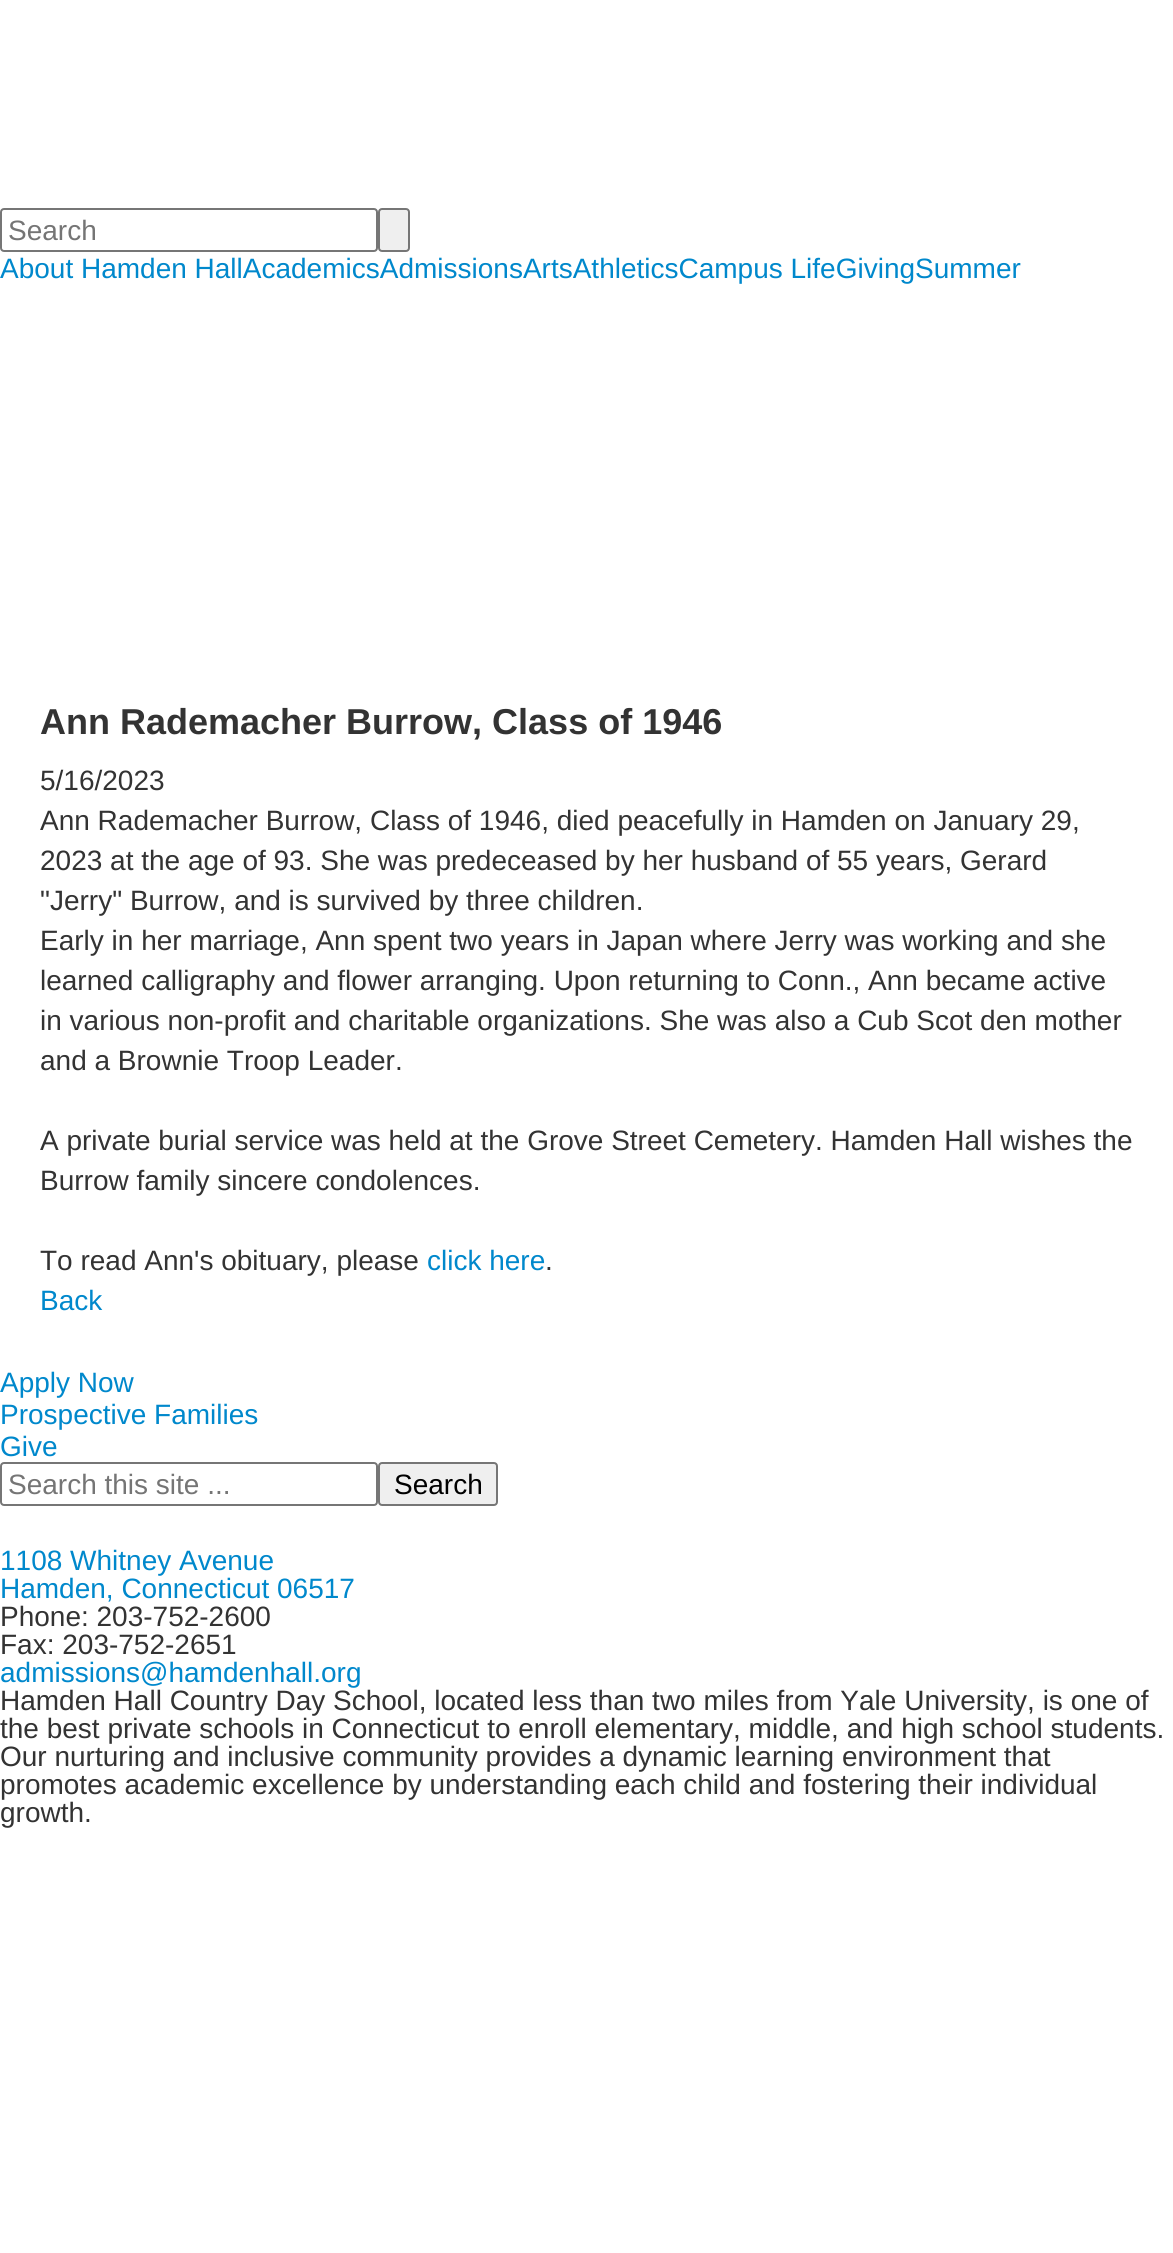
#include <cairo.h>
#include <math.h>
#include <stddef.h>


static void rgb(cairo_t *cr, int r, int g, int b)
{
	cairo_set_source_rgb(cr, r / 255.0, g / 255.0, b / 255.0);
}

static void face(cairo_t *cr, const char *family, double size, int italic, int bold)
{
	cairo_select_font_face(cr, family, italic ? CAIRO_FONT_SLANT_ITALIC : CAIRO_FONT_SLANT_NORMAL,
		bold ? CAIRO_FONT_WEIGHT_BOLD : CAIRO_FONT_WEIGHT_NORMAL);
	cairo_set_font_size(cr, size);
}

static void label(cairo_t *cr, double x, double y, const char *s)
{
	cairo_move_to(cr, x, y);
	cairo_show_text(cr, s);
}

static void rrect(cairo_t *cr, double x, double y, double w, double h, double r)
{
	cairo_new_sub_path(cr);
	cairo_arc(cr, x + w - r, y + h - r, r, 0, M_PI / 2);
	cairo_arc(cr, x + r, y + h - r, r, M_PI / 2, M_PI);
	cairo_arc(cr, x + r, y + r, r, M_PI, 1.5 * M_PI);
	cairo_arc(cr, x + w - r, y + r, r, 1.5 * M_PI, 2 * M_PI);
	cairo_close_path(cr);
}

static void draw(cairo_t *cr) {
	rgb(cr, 255, 255, 255);
	cairo_paint(cr);
	rrect(cr, 1, 209, 376, 42, 3);
	rgb(cr, 118, 118, 118);
	cairo_stroke(cr);
	face(cr, "Liberation Sans", 28, 0, 0);
	rgb(cr, 117, 117, 117);
	label(cr, 8, 240, "Search");
	rgb(cr, 239, 239, 239);
	rrect(cr, 379, 209, 30, 42, 3);
	cairo_fill_preserve(cr);
	rgb(cr, 118, 118, 118);
	cairo_stroke(cr);
	rgb(cr, 0, 136, 204);
	label(cr, 0, 278, "About Hamden HallAcademicsAdmissionsArtsAthleticsCampus LifeGivingSummer");
	face(cr, "Liberation Sans", 36, 0, 1);
	rgb(cr, 51, 51, 51);
	label(cr, 40, 734, "Ann Rademacher Burrow, Class of 1946");
	face(cr, "Liberation Sans", 28, 0, 0);
	label(cr, 40, 790, "5/16/2023");
	label(cr, 40, 830, "Ann Rademacher Burrow, Class of 1946, died peacefully in Hamden on January 29,");
	label(cr, 40, 870, "2023 at the age of 93. She was predeceased by her husband of 55 years, Gerard");
	label(cr, 40, 910, "\"Jerry\" Burrow, and is survived by three children.");
	label(cr, 40, 950, "Early in her marriage, Ann spent two years in Japan where Jerry was working and she");
	label(cr, 40, 990, "learned calligraphy and flower arranging. Upon returning to Conn., Ann became active");
	label(cr, 40, 1030, "in various non-profit and charitable organizations. She was also a Cub Scot den mother");
	label(cr, 40, 1070, "and a Brownie Troop Leader.");
	label(cr, 40, 1150, "A private burial service was held at the Grove Street Cemetery. Hamden Hall wishes the");
	label(cr, 40, 1190, "Burrow family sincere condolences.");
	label(cr, 40, 1270, "To read Ann's obituary, please");
	rgb(cr, 0, 136, 204);
	label(cr, 427, 1270, "click here");
	rgb(cr, 51, 51, 51);
	label(cr, 545, 1270, ".");
	rgb(cr, 0, 136, 204);
	label(cr, 40, 1310, "Back");
	label(cr, 0, 1392, "Apply Now");
	label(cr, 0, 1424, "Prospective Families");
	label(cr, 0, 1456, "Give");
	rrect(cr, 1, 1463, 376, 42, 3);
	rgb(cr, 118, 118, 118);
	cairo_stroke(cr);
	rgb(cr, 117, 117, 117);
	label(cr, 8, 1494, "Search this site ...");
	rgb(cr, 239, 239, 239);
	rrect(cr, 379, 1463, 118, 42, 3);
	cairo_fill_preserve(cr);
	rgb(cr, 118, 118, 118);
	cairo_stroke(cr);
	rgb(cr, 0, 0, 0);
	label(cr, 394, 1494, "Search");
	rgb(cr, 0, 136, 204);
	label(cr, 0, 1570, "1108 Whitney Avenue");
	label(cr, 0, 1598, "Hamden, Connecticut 06517");
	rgb(cr, 51, 51, 51);
	label(cr, 0, 1626, "Phone: 203-752-2600");
	label(cr, 0, 1654, "Fax: 203-752-2651");
	rgb(cr, 0, 136, 204);
	label(cr, 0, 1682, "admissions@hamdenhall.org");
	rgb(cr, 51, 51, 51);
	label(cr, 0, 1710, "Hamden Hall Country Day School, located less than two miles from Yale University, is one of");
	label(cr, 0, 1738, "the best private schools in Connecticut to enroll elementary, middle, and high school students.");
	label(cr, 0, 1766, "Our nurturing and inclusive community provides a dynamic learning environment that");
	label(cr, 0, 1794, "promotes academic excellence by understanding each child and fostering their individual");
	label(cr, 0, 1822, "growth.");
}

int main(void) {
	cairo_surface_t *surface = cairo_image_surface_create(CAIRO_FORMAT_RGB24, 1173, 2253);
	cairo_t *cr = cairo_create(surface);
	cairo_font_options_t *options = cairo_font_options_create();
	cairo_font_options_set_hint_metrics(options, CAIRO_HINT_METRICS_OFF);
	cairo_font_options_set_hint_style(options, CAIRO_HINT_STYLE_NONE);
	cairo_set_font_options(cr, options);
	cairo_set_miter_limit(cr, 4);
	draw(cr);
	cairo_surface_write_to_png(surface, "render.png");
	cairo_font_options_destroy(options);
	cairo_destroy(cr);
	cairo_surface_destroy(surface);
	return 0;
}
